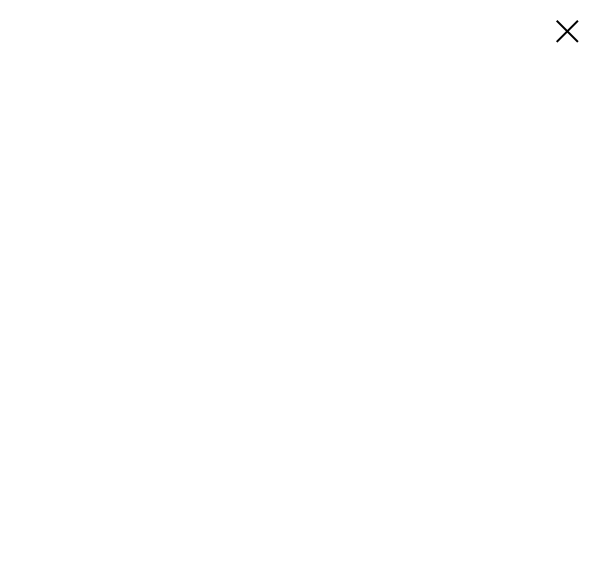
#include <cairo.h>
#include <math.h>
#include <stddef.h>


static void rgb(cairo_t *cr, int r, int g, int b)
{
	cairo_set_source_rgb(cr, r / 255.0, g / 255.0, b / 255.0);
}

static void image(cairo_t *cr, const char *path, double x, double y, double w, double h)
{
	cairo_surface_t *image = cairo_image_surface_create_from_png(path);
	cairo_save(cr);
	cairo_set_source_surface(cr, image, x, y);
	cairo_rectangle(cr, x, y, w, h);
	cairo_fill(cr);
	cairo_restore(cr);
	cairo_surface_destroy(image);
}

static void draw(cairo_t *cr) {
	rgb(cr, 255, 255, 255);
	cairo_paint(cr);
	image(cr, "image0.png", 556, 20, 23, 23);
}

int main(void) {
	cairo_surface_t *surface = cairo_image_surface_create(CAIRO_FORMAT_RGB24, 599, 563);
	cairo_t *cr = cairo_create(surface);
	cairo_font_options_t *options = cairo_font_options_create();
	cairo_font_options_set_hint_metrics(options, CAIRO_HINT_METRICS_OFF);
	cairo_font_options_set_hint_style(options, CAIRO_HINT_STYLE_NONE);
	cairo_set_font_options(cr, options);
	cairo_set_miter_limit(cr, 4);
	draw(cr);
	cairo_surface_write_to_png(surface, "render.png");
	cairo_font_options_destroy(options);
	cairo_destroy(cr);
	cairo_surface_destroy(surface);
	return 0;
}
